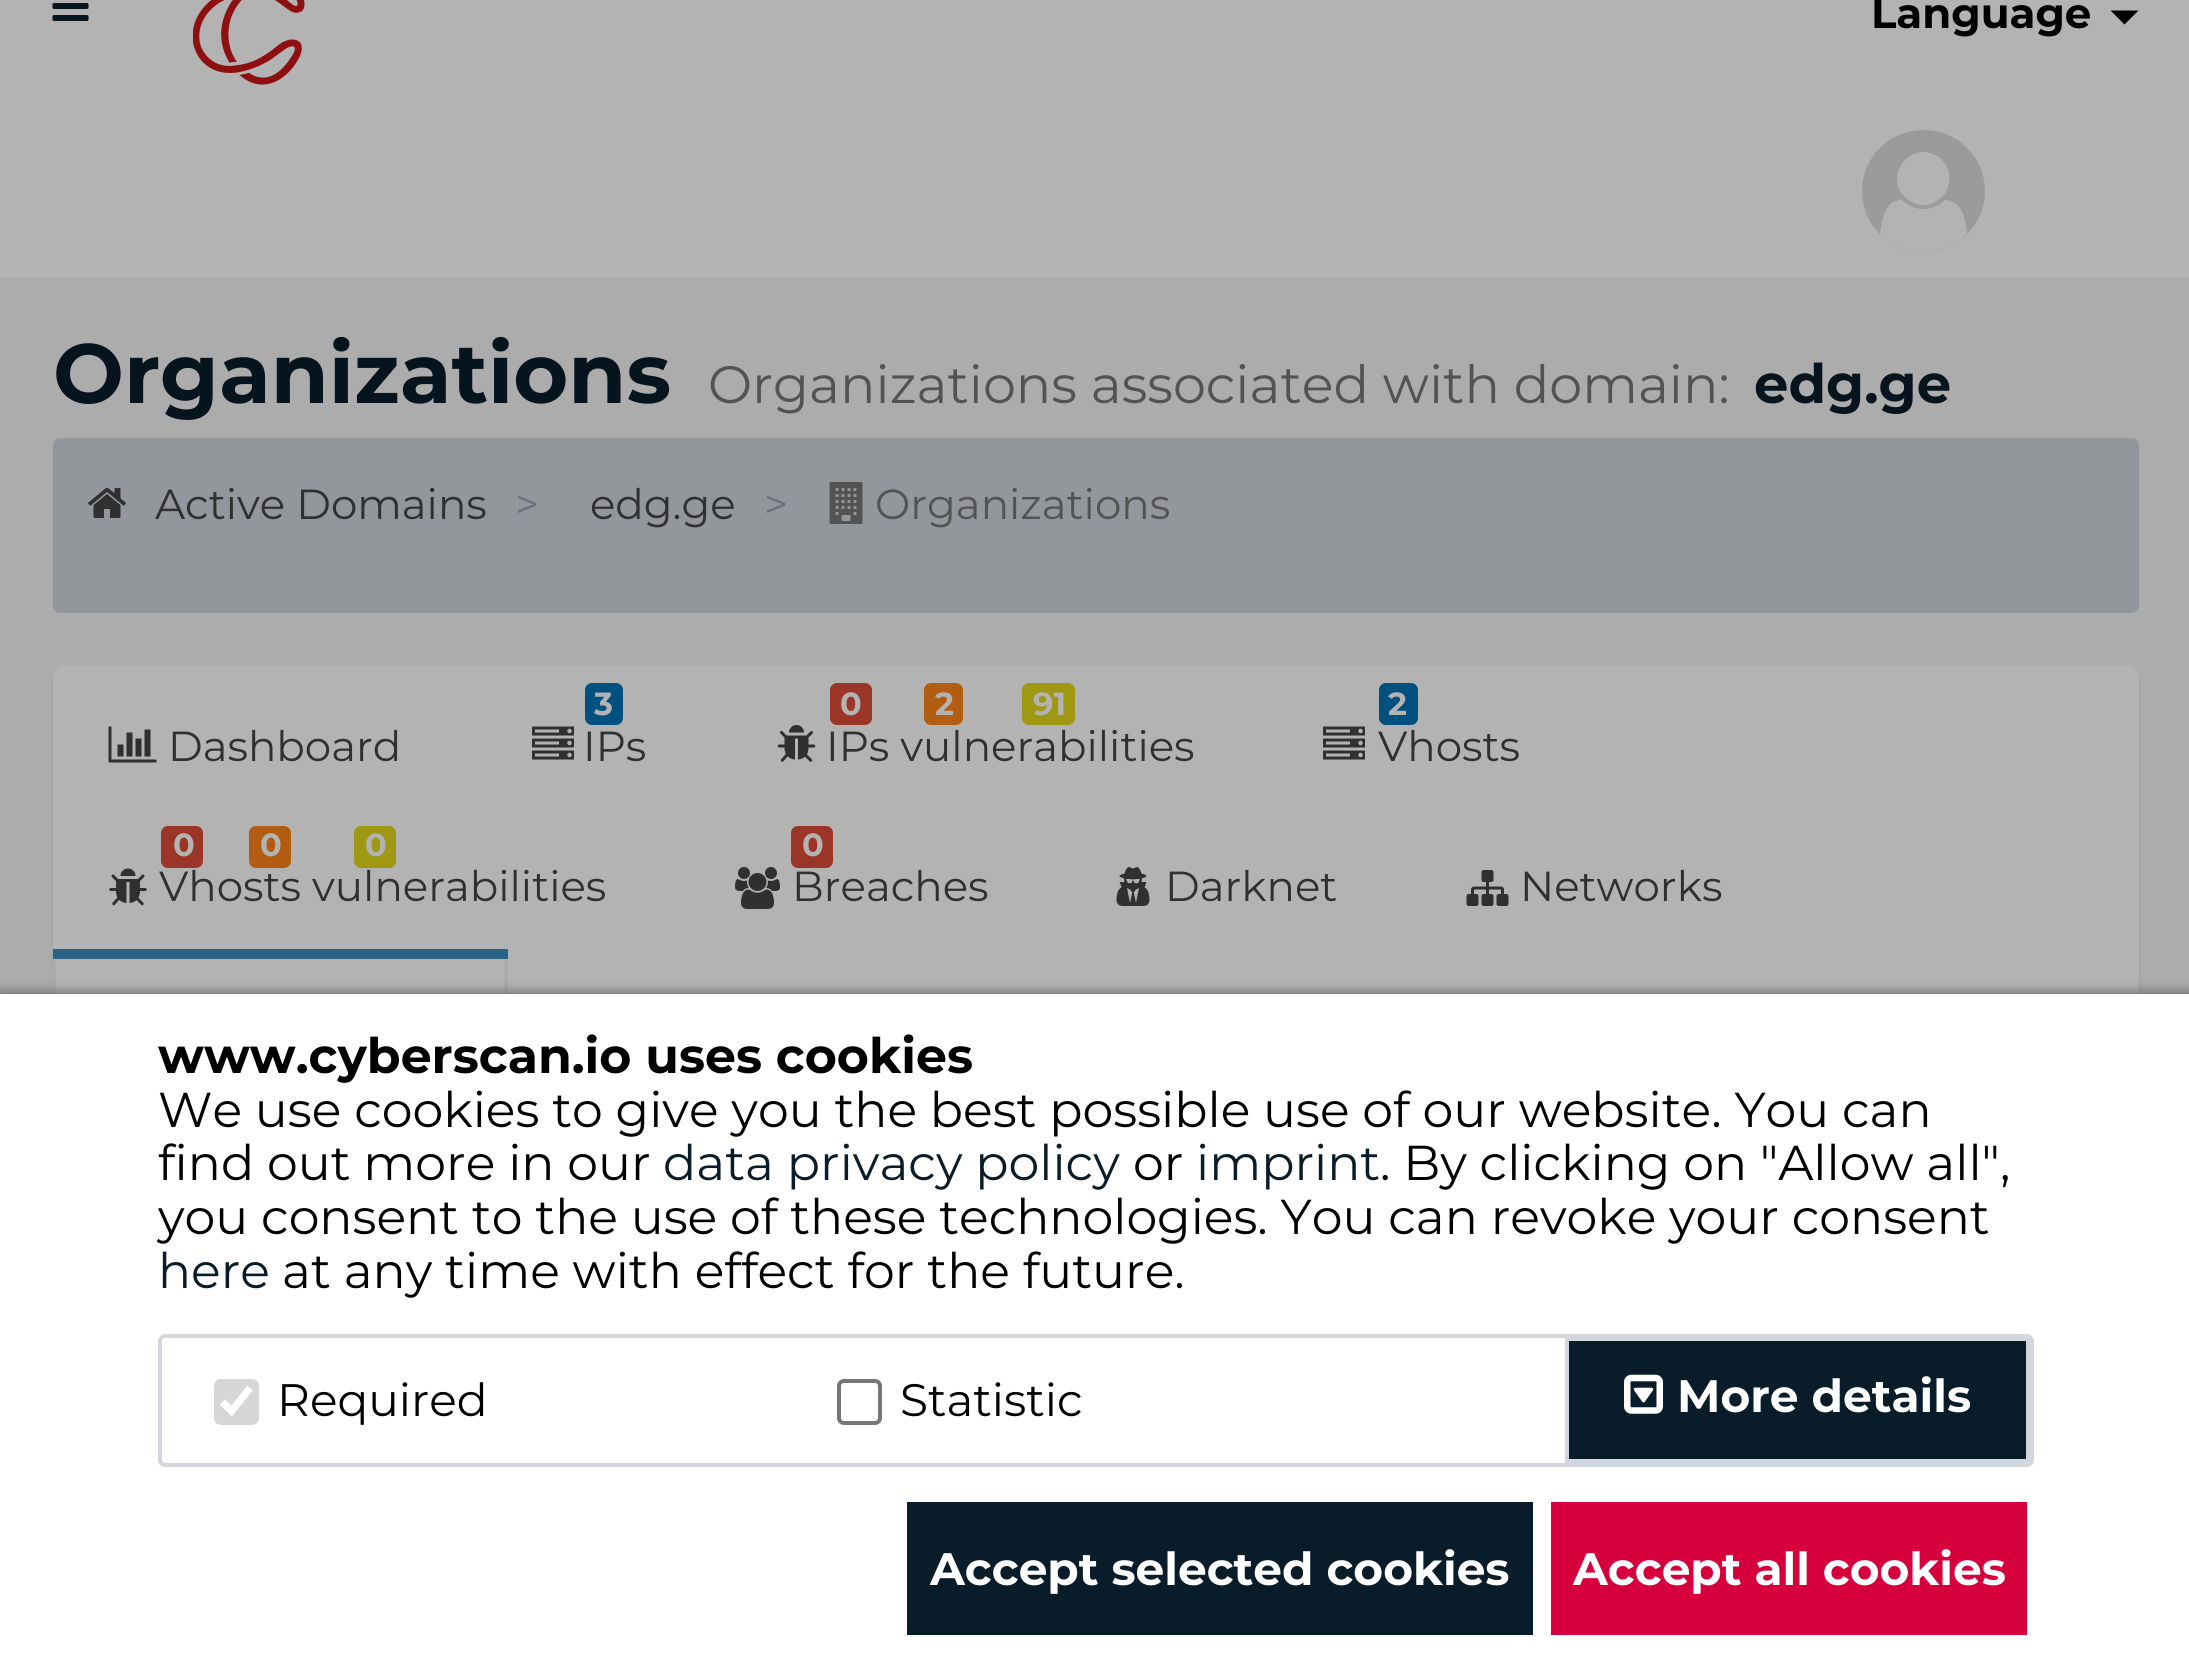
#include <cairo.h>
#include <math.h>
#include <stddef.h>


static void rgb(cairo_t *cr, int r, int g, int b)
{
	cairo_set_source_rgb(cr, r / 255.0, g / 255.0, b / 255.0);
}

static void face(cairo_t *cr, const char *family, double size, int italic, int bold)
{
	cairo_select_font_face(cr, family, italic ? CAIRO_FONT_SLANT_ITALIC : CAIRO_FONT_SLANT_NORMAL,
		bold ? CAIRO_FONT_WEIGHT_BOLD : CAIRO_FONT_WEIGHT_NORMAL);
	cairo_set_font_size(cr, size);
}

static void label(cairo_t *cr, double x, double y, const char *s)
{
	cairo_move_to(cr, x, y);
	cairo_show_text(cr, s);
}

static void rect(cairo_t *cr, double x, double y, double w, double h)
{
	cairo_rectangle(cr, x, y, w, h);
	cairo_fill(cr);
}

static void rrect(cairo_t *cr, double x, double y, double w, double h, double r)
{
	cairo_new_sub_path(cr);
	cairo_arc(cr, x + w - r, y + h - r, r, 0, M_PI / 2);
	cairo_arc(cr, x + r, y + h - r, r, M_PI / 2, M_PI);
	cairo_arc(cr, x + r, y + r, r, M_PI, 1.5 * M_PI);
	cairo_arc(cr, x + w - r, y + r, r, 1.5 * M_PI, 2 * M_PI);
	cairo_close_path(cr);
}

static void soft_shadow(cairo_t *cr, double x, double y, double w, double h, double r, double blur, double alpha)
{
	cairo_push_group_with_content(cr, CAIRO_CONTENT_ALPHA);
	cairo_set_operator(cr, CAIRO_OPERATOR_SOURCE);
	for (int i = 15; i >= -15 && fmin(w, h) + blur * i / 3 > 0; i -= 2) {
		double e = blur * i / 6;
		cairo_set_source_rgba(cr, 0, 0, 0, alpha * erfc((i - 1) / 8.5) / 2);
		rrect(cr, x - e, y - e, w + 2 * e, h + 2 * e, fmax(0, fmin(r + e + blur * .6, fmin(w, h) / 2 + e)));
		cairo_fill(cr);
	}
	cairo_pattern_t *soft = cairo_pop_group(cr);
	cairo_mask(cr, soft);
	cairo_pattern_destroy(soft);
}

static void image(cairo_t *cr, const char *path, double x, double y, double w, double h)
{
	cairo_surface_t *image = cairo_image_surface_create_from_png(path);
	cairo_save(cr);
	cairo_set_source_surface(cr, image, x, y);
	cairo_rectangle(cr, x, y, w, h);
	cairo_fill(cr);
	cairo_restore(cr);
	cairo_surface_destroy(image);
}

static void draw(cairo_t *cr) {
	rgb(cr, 179, 179, 179);
	cairo_paint(cr);
	image(cr, "image0.png", 193, 0, 112, 85);
	image(cr, "image1.png", 52, 3, 37, 18);
	face(cr, "Montserrat Thin", 42, 0, 0);
	rgb(cr, 0, 0, 0);
	label(cr, 1871, 28, "Language");
	cairo_new_path(cr);
	cairo_move_to(cr, 2110.5, 10.5);
	cairo_line_to(cr, 2138.5, 10.5);
	cairo_line_to(cr, 2124.5, 24.5);
	cairo_close_path(cr);
	cairo_fill(cr);
	rgb(cr, 155, 155, 155);
	rrect(cr, 1862, 130, 123, 122, 61);
	cairo_fill(cr);
	rgb(cr, 179, 179, 179);
	cairo_set_fill_rule(cr, CAIRO_FILL_RULE_EVEN_ODD);
	cairo_new_path(cr);
	cairo_move_to(cr, 1967, 234);
	cairo_curve_to(cr, 1943, 258, 1903, 258, 1880, 234);
	cairo_curve_to(cr, 1882, 220, 1884, 200, 1902, 200);
	cairo_curve_to(cr, 1914, 212, 1933, 212, 1945, 200);
	cairo_curve_to(cr, 1962, 200, 1966, 220, 1967, 234);
	cairo_close_path(cr);
	cairo_move_to(cr, 1942, 160);
	cairo_curve_to(cr, 1938, 156, 1932, 153, 1926, 152);
	cairo_curve_to(cr, 1902, 150, 1887, 180, 1905, 197);
	cairo_curve_to(cr, 1909, 201, 1915, 204, 1921, 205);
	cairo_curve_to(cr, 1945, 207, 1959, 177, 1942, 160);
	cairo_close_path(cr);
	cairo_fill(cr);
	rgb(cr, 172, 172, 172);
	rect(cr, 0, 277, 2189, 717);
	face(cr, "Montserrat Thin", 84, 0, 0);
	rgb(cr, 6, 20, 29);
	label(cr, 53, 403, "Organizations");
	face(cr, "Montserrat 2 Thin", 52.5, 0, 0);
	rgb(cr, 83, 83, 83);
	label(cr, 708, 403, "Organizations associated with domain:");
	face(cr, "Montserrat Thin", 54.5, 0, 0);
	rgb(cr, 6, 20, 29);
	label(cr, 1754, 403, "edg.ge");
	rgb(cr, 147, 150, 155);
	rrect(cr, 53, 438, 2086, 175, 7);
	cairo_fill(cr);
	image(cr, "image2.png", 88, 488, 38, 30);
	face(cr, "Montserrat 2 Thin", 42, 0, 0);
	rgb(cr, 48, 48, 48);
	label(cr, 155, 519, "Active Domains");
	rgb(cr, 106, 112, 125);
	label(cr, 515, 519, ">");
	rgb(cr, 48, 48, 48);
	label(cr, 590, 519, "edg.ge");
	rgb(cr, 106, 112, 125);
	label(cr, 764, 519, ">");
	image(cr, "image3.png", 829, 482, 34, 42);
	rgb(cr, 83, 83, 83);
	label(cr, 875, 519, "Organizations");
	rgb(cr, 0, 0, 0);
	soft_shadow(cr, 53, 669, 2086, 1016, 11, 2, 0.1);
	rgb(cr, 179, 179, 179);
	rrect(cr, 53, 665, 2086, 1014, 11);
	cairo_fill(cr);
	image(cr, "image4.png", 108, 726, 49, 37);
	rgb(cr, 48, 48, 48);
	label(cr, 168, 761, "Dashboard");
	rgb(cr, 0, 81, 128);
	rrect(cr, 585, 683, 38, 42, 7);
	cairo_fill(cr);
	face(cr, "Montserrat Thin", 32, 0, 0);
	rgb(cr, 179, 179, 179);
	label(cr, 594, 715, "3");
	image(cr, "image5.png", 532, 726, 42, 34);
	face(cr, "Montserrat 2 Thin", 42, 0, 0);
	rgb(cr, 48, 48, 48);
	label(cr, 583, 761, "IPs");
	rgb(cr, 155, 53, 40);
	rrect(cr, 830, 683, 42, 42, 7);
	cairo_fill(cr);
	face(cr, "Montserrat Thin", 32, 0, 0);
	rgb(cr, 179, 179, 179);
	label(cr, 840, 715, "0");
	rgb(cr, 179, 93, 19);
	rrect(cr, 924, 683, 39, 42, 7);
	cairo_fill(cr);
	rgb(cr, 179, 179, 179);
	label(cr, 935, 715, "2");
	rgb(cr, 159, 152, 18);
	rrect(cr, 1022, 683, 53, 42, 7);
	cairo_fill(cr);
	rgb(cr, 179, 179, 179);
	label(cr, 1033, 715, "91");
	image(cr, "image6.png", 777, 725, 39, 37);
	face(cr, "Montserrat 2 Thin", 42, 0, 0);
	rgb(cr, 48, 48, 48);
	label(cr, 826, 761, "IPs vulnerabilities");
	rgb(cr, 0, 81, 128);
	rrect(cr, 1379, 683, 39, 42, 7);
	cairo_fill(cr);
	face(cr, "Montserrat Thin", 32, 0, 0);
	rgb(cr, 179, 179, 179);
	label(cr, 1388, 715, "2");
	image(cr, "image5.png", 1323, 726, 42, 34);
	face(cr, "Montserrat 2 Thin", 42, 0, 0);
	rgb(cr, 48, 48, 48);
	label(cr, 1378, 761, "Vhosts");
	rgb(cr, 155, 53, 40);
	rrect(cr, 161, 826, 42, 42, 7);
	cairo_fill(cr);
	face(cr, "Montserrat Thin", 32, 0, 0);
	rgb(cr, 179, 179, 179);
	label(cr, 173, 856, "0");
	rgb(cr, 179, 93, 19);
	rrect(cr, 249, 826, 42, 42, 7);
	cairo_fill(cr);
	rgb(cr, 179, 179, 179);
	label(cr, 260, 856, "0");
	rgb(cr, 159, 152, 18);
	rrect(cr, 354, 826, 42, 42, 7);
	cairo_fill(cr);
	rgb(cr, 179, 179, 179);
	label(cr, 365, 856, "0");
	image(cr, "image7.png", 109, 868, 38, 38);
	face(cr, "Montserrat 2 Thin", 42, 0, 0);
	rgb(cr, 48, 48, 48);
	label(cr, 159, 901, "Vhosts vulnerabilities");
	rgb(cr, 155, 53, 40);
	rrect(cr, 791, 826, 42, 42, 7);
	cairo_fill(cr);
	face(cr, "Montserrat Thin", 32, 0, 0);
	rgb(cr, 179, 179, 179);
	label(cr, 802, 856, "0");
	image(cr, "image8.png", 735, 867, 45, 42);
	face(cr, "Montserrat 2 Thin", 42, 0, 0);
	rgb(cr, 48, 48, 48);
	label(cr, 792, 901, "Breaches");
	image(cr, "image9.png", 1116, 867, 34, 39);
	label(cr, 1165, 901, "Darknet");
	image(cr, "image10.png", 1466, 870, 43, 36);
	label(cr, 1520, 901, "Networks");
	rgb(cr, 42, 99, 132);
	rect(cr, 53, 949, 455, 10);
	rgb(cr, 171, 171, 171);
	cairo_set_fill_rule(cr, CAIRO_FILL_RULE_WINDING);
	cairo_new_path(cr);
	cairo_move_to(cr, 508, 959);
	cairo_line_to(cr, 508, 1096);
	cairo_line_to(cr, 504, 1092);
	cairo_line_to(cr, 504, 962);
	cairo_close_path(cr);
	cairo_fill(cr);
	cairo_new_path(cr);
	cairo_move_to(cr, 52, 1096);
	cairo_line_to(cr, 52, 959);
	cairo_line_to(cr, 56, 962);
	cairo_line_to(cr, 56, 1092);
	cairo_close_path(cr);
	cairo_fill(cr);
	rgb(cr, 0, 0, 0);
	soft_shadow(cr, 0, 994, 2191, 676, 0, 7, 0.5);
	rgb(cr, 255, 255, 255);
	rect(cr, 0, 994, 2189, 674);
	face(cr, "Montserrat Thin", 49, 0, 0);
	rgb(cr, 0, 0, 0);
	label(cr, 158, 1073, "www.cyberscan.io uses cookies");
	face(cr, "Montserrat 2 Thin", 49, 0, 0);
	label(cr, 158, 1127, "We use cookies to give you the best possible use of our website. You can");
	label(cr, 158, 1180, "find out more in our");
	rgb(cr, 9, 28, 41);
	label(cr, 663, 1180, "data privacy policy");
	rgb(cr, 0, 0, 0);
	label(cr, 1133, 1180, "or");
	rgb(cr, 9, 28, 41);
	label(cr, 1196, 1180, "imprint");
	rgb(cr, 0, 0, 0);
	label(cr, 1380, 1180, ". By clicking on \"Allow all\",");
	label(cr, 158, 1234, "you consent to the use of these technologies. You can revoke your consent");
	rgb(cr, 9, 28, 41);
	label(cr, 158, 1288, "here");
	rgb(cr, 0, 0, 0);
	label(cr, 282, 1288, "at any time with effect for the future.");
	rrect(cr, 160, 1336, 1872, 129, 5);
	rgb(cr, 210, 214, 222);
	cairo_set_line_width(cr, 4);
	cairo_stroke(cr);
	rgb(cr, 214, 214, 214);
	rrect(cr, 214, 1379, 45, 46, 7);
	cairo_fill(cr);
	cairo_new_path(cr);
	cairo_move_to(cr, 222.5, 1402);
	cairo_line_to(cr, 231.5, 1411);
	cairo_line_to(cr, 250, 1388);
	rgb(cr, 255, 255, 255);
	cairo_set_line_width(cr, 7.3);
	cairo_stroke(cr);
	face(cr, "Montserrat 2 Thin", 45.5, 0, 0);
	rgb(cr, 0, 0, 0);
	label(cr, 277, 1416, "Required");
	rrect(cr, 839, 1381, 41, 42, 5);
	rgb(cr, 118, 118, 118);
	cairo_set_line_width(cr, 4);
	cairo_stroke(cr);
	rgb(cr, 0, 0, 0);
	label(cr, 900, 1416, "Statistic");
	rgb(cr, 9, 28, 41);
	cairo_rectangle(cr, 1567, 1339, 461, 122);
	cairo_fill_preserve(cr);
	rgb(cr, 210, 214, 222);
	cairo_stroke(cr);
	image(cr, "image11.png", 1624, 1374, 39, 40);
	face(cr, "Montserrat Thin", 45.5, 0, 0);
	rgb(cr, 255, 255, 255);
	label(cr, 1677, 1412, "More details");
	rgb(cr, 9, 28, 41);
	rect(cr, 907, 1502, 626, 133);
	rgb(cr, 255, 255, 255);
	label(cr, 930, 1585, "Accept selected cookies");
	rgb(cr, 214, 0, 60);
	rect(cr, 1551, 1502, 476, 133);
	rgb(cr, 255, 255, 255);
	label(cr, 1573, 1585, "Accept all cookies");
}

int main(void) {
	cairo_surface_t *surface = cairo_image_surface_create(CAIRO_FORMAT_RGB24, 2189, 1668);
	cairo_t *cr = cairo_create(surface);
	cairo_font_options_t *options = cairo_font_options_create();
	cairo_font_options_set_hint_metrics(options, CAIRO_HINT_METRICS_OFF);
	cairo_font_options_set_hint_style(options, CAIRO_HINT_STYLE_NONE);
	cairo_set_font_options(cr, options);
	cairo_set_miter_limit(cr, 4);
	draw(cr);
	cairo_surface_write_to_png(surface, "render.png");
	cairo_font_options_destroy(options);
	cairo_destroy(cr);
	cairo_surface_destroy(surface);
	return 0;
}
